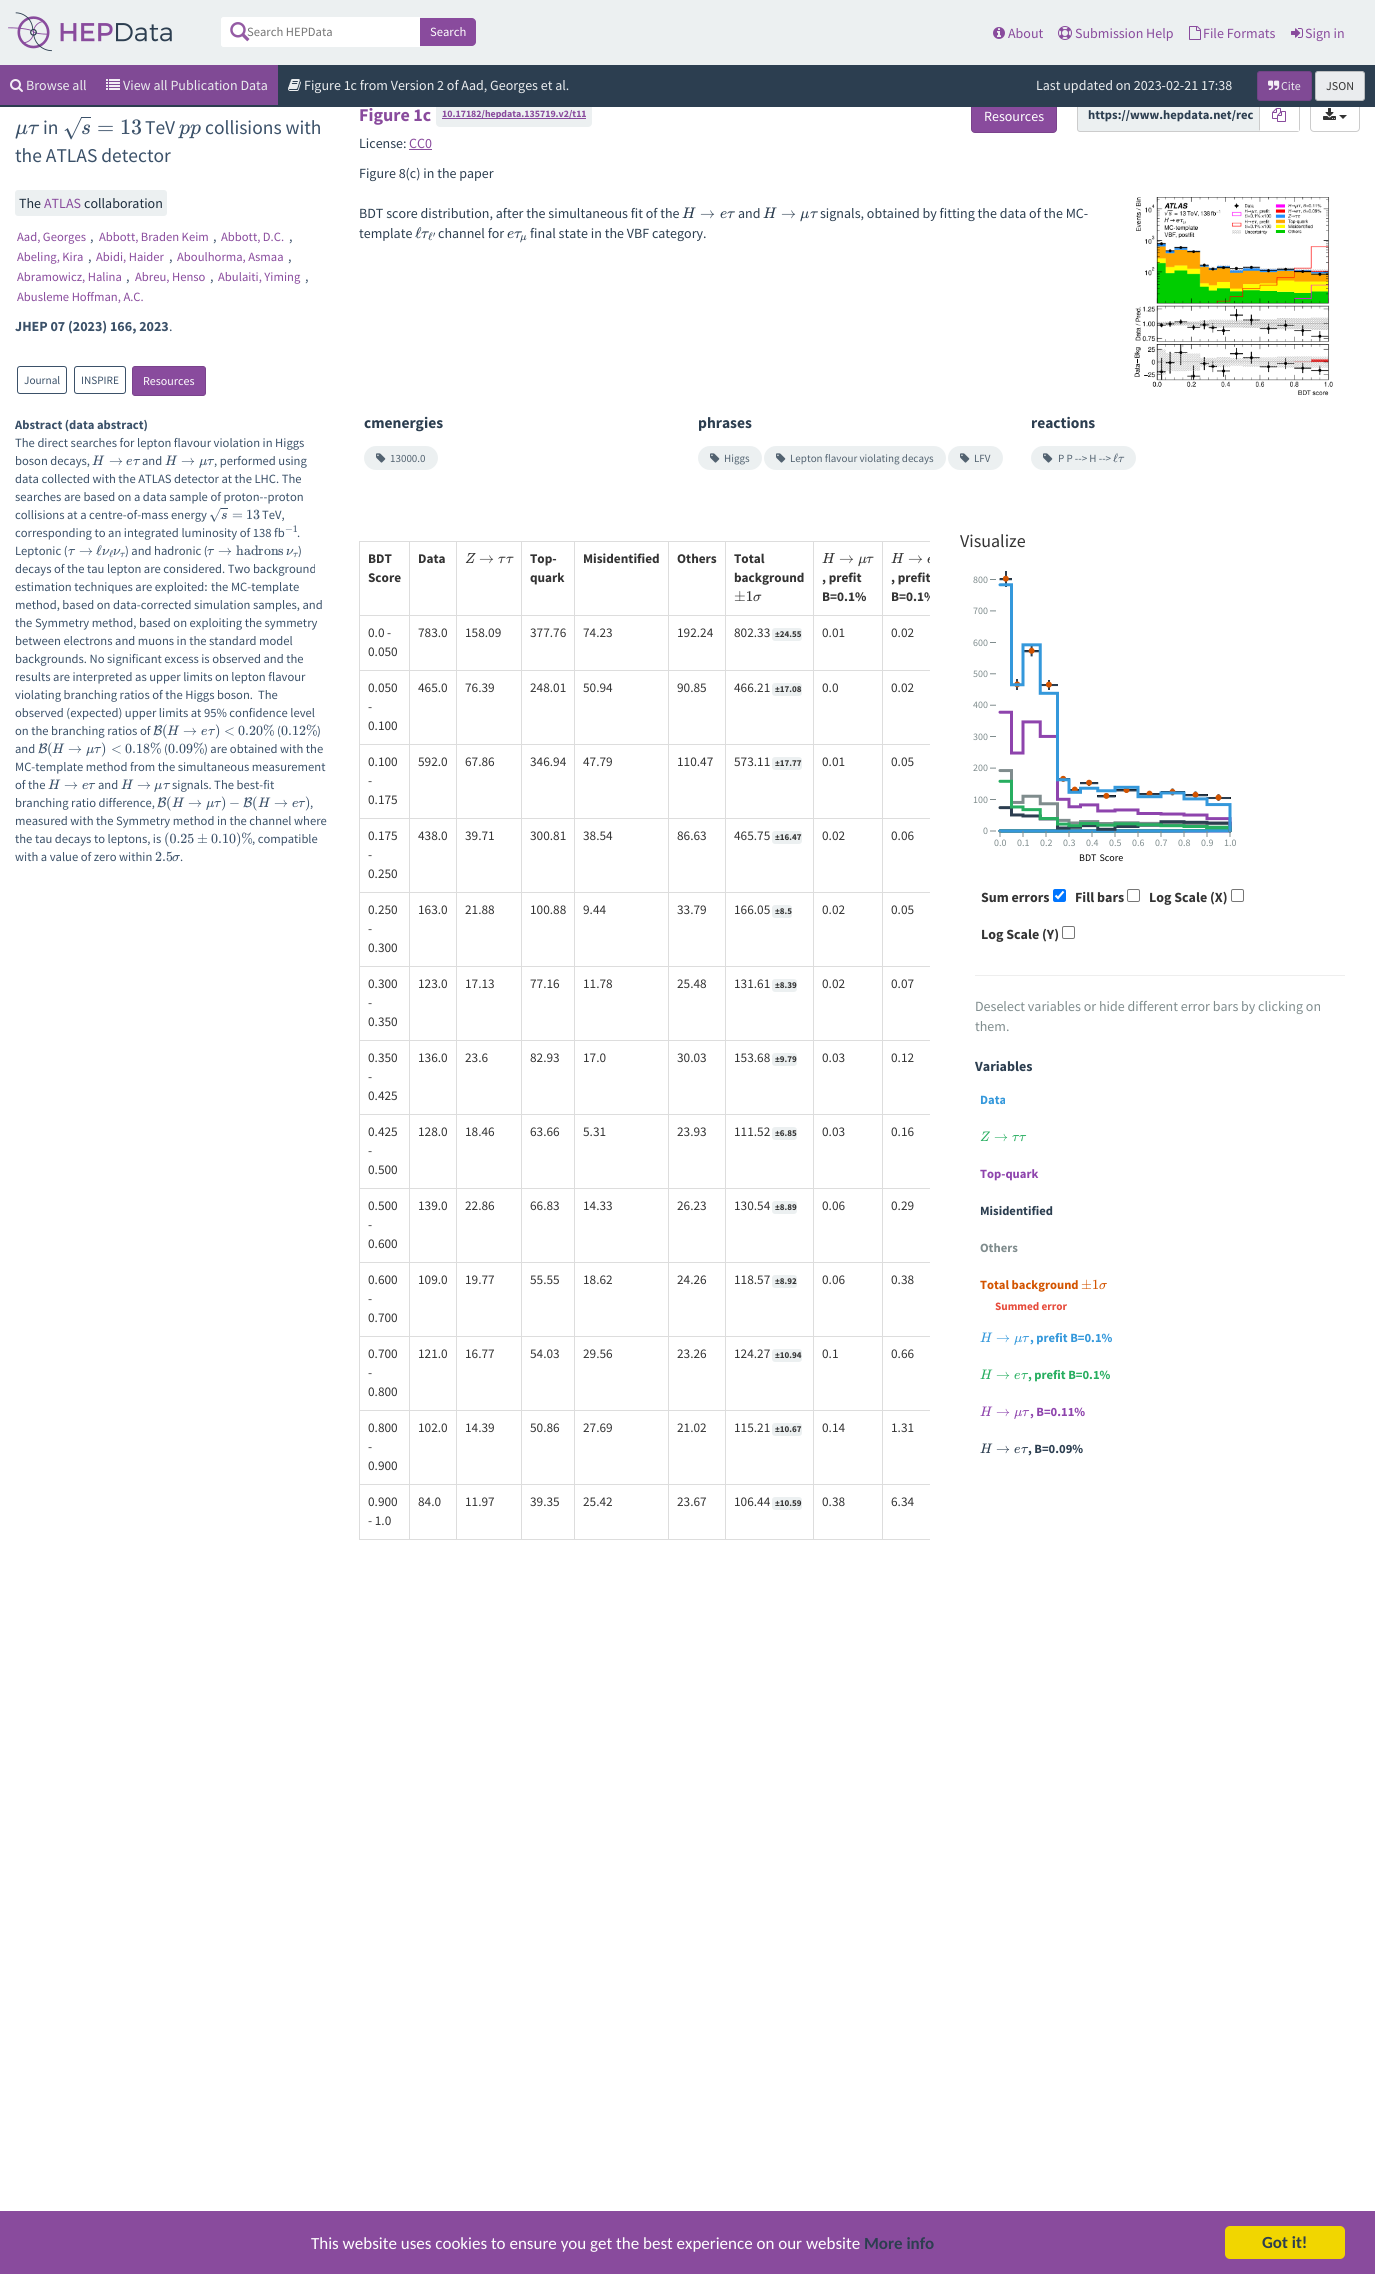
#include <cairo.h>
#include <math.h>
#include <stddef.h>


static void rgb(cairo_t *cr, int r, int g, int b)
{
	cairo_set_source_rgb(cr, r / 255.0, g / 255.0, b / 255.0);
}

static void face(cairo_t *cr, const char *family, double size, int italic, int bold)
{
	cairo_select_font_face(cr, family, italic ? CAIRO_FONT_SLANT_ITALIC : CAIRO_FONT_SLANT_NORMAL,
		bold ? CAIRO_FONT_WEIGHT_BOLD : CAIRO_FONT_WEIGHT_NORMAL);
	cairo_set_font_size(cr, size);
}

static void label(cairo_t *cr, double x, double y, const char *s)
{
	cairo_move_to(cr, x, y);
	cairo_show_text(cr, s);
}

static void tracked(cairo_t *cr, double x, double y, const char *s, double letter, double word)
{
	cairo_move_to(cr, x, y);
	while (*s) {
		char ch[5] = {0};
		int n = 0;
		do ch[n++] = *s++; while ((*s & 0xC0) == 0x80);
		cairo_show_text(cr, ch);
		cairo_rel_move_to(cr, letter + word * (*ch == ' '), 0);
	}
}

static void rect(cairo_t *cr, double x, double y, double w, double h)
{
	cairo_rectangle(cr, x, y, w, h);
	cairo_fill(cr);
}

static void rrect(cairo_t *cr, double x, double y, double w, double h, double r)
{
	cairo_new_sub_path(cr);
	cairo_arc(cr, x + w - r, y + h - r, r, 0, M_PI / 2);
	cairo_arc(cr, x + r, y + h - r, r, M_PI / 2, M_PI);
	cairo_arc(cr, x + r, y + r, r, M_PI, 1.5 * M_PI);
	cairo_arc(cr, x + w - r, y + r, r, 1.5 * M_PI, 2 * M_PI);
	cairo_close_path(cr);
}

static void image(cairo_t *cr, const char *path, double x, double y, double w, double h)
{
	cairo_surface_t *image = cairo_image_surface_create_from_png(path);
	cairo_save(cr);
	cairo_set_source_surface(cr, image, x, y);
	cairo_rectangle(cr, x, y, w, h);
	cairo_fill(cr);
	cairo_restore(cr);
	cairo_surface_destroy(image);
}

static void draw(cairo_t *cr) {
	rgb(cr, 255, 255, 255);
	cairo_paint(cr);
	rgb(cr, 236, 240, 241);
	rect(cr, 0, 0, 1375, 65);
	image(cr, "image0.png", 8, 12, 164, 40);
	rgb(cr, 255, 255, 255);
	cairo_new_path(cr);
	cairo_move_to(cr, 224, 17);
	cairo_line_to(cr, 420, 17);
	cairo_line_to(cr, 420, 47);
	cairo_line_to(cr, 224, 47);
	cairo_curve_to(cr, 222.5, 47, 221, 45.5, 221, 44);
	cairo_line_to(cr, 221, 20);
	cairo_curve_to(cr, 221, 18.5, 222.5, 17, 224, 17);
	cairo_close_path(cr);
	cairo_fill(cr);
	image(cr, "image1.png", 230, 22, 20, 20);
	cairo_new_path(cr);
	cairo_move_to(cr, 224, 17.5);
	cairo_line_to(cr, 419.5, 17.5);
	cairo_line_to(cr, 419.5, 46.5);
	cairo_line_to(cr, 224, 46.5);
	cairo_curve_to(cr, 222.5, 46.5, 221.5, 45.5, 221.5, 44);
	cairo_line_to(cr, 221.5, 20);
	cairo_curve_to(cr, 221.5, 18.5, 222.5, 17.5, 224, 17.5);
	cairo_close_path(cr);
	cairo_set_line_width(cr, 1);
	cairo_stroke(cr);
	face(cr, "Source Sans Pro", 12.6, 0, 0);
	rgb(cr, 117, 117, 117);
	label(cr, 247, 36, "Search HEPData");
	rgb(cr, 137, 75, 157);
	cairo_new_path(cr);
	cairo_move_to(cr, 420, 18);
	cairo_line_to(cr, 472, 18);
	cairo_curve_to(cr, 474, 18, 476, 20, 476, 22);
	cairo_line_to(cr, 476, 42);
	cairo_curve_to(cr, 476, 44, 474, 46, 472, 46);
	cairo_line_to(cr, 420, 46);
	cairo_close_path(cr);
	cairo_fill(cr);
	rgb(cr, 255, 255, 255);
	label(cr, 430, 36, "Search");
	image(cr, "image2.png", 993, 27, 12, 12);
	face(cr, "Source Sans Pro", 14, 0, 0);
	rgb(cr, 137, 75, 157);
	label(cr, 1008, 38, "About");
	image(cr, "image3.png", 1058, 26, 14, 14);
	label(cr, 1075, 38, "Submission Help");
	image(cr, "image4.png", 1189, 26, 12, 14);
	label(cr, 1203, 38, "File Formats");
	image(cr, "image5.png", 1291, 28, 12, 10);
	label(cr, 1305, 38, "Sign in");
	rgb(cr, 236, 240, 241);
	rrect(cr, 436, 102, 156, 25, 4);
	cairo_fill(cr);
	rgb(cr, 137, 75, 157);
	rrect(cr, 971.5, 99.5, 85, 33, 3.5);
	cairo_fill_preserve(cr);
	rgb(cr, 122, 67, 140);
	cairo_stroke(cr);
	rgb(cr, 236, 240, 241);
	rrect(cr, 1077.5, 98.5, 222, 33, 2.5);
	cairo_fill_preserve(cr);
	rgb(cr, 204, 204, 204);
	cairo_stroke(cr);
	rgb(cr, 255, 255, 255);
	rect(cr, 1259, 107, 40, 24);
	rgb(cr, 204, 204, 204);
	cairo_new_path(cr);
	cairo_move_to(cr, 1259, 131);
	cairo_line_to(cr, 1259, 99);
	cairo_line_to(cr, 1260, 100);
	cairo_line_to(cr, 1260, 130);
	cairo_close_path(cr);
	cairo_fill(cr);
	rrect(cr, 1310.5, 98.5, 49, 33, 3.5);
	cairo_stroke(cr);
	rgb(cr, 44, 62, 80);
	rect(cr, 0, 65, 1375, 42);
	rgb(cr, 128, 74, 149);
	rect(cr, 0, 65, 278, 40);
	image(cr, "image6.png", 10, 79, 13, 13);
	rgb(cr, 234, 236, 238);
	label(cr, 26, 90, "Browse all");
	image(cr, "image7.png", 106, 79, 14, 11);
	label(cr, 123, 90, "View all Publication Data");
	image(cr, "image8.png", 288, 79, 13, 12);
	label(cr, 304, 90, "Figure 1c from Version 2 of Aad, Georges et al.");
	label(cr, 1036, 90, "Last updated on 2023-02-21 17:38");
	rgb(cr, 128, 74, 149);
	rrect(cr, 1257.5, 71.5, 54, 29, 2.5);
	cairo_fill_preserve(cr);
	rgb(cr, 114, 67, 134);
	cairo_stroke(cr);
	image(cr, "image9.png", 1268, 80, 12, 10);
	face(cr, "Source Sans Pro", 12, 0, 0);
	rgb(cr, 234, 236, 238);
	label(cr, 1281, 90, "Cite");
	rrect(cr, 1315.5, 71.5, 49, 29, 2.5);
	cairo_fill_preserve(cr);
	rgb(cr, 188, 190, 192);
	cairo_stroke(cr);
	rgb(cr, 51, 51, 51);
	label(cr, 1326, 90, "JSON");
	image(cr, "image10.png", 15, 124, 13, 15);
	image(cr, "image11.png", 28, 124, 12, 11);
	face(cr, "Source Sans Pro", 19.5, 0, 0);
	rgb(cr, 59, 81, 105);
	label(cr, 43, 134, "in");
	face(cr, "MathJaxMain", 22, 0, 0);
	label(cr, 63, 135, "√");
	rect(cr, 81, 117, 10, 1);
	image(cr, "image12.png", 82, 124, 8, 11);
	label(cr, 97, 134, "=");
	label(cr, 120, 134, "13");
	face(cr, "Source Sans Pro", 19.5, 0, 0);
	label(cr, 145, 134, "TeV");
	image(cr, "image13.png", 178, 124, 12, 15);
	image(cr, "image14.png", 189, 124, 12, 15);
	label(cr, 205, 134, "collisions with");
	label(cr, 15, 162, "the ATLAS detector");
	rgb(cr, 236, 240, 241);
	rrect(cr, 15, 190, 152, 26, 3);
	cairo_fill(cr);
	face(cr, "Source Sans Pro", 14, 0, 0);
	rgb(cr, 29, 45, 61);
	label(cr, 19, 208, "The");
	rgb(cr, 137, 75, 157);
	label(cr, 44, 208, "ATLAS");
	rgb(cr, 29, 45, 61);
	label(cr, 84, 208, "collaboration");
	face(cr, "Source Sans Pro", 12.6, 0, 0);
	rgb(cr, 137, 75, 157);
	label(cr, 17, 241, "Aad, Georges");
	face(cr, "Source Sans Pro", 14, 0, 0);
	rgb(cr, 59, 81, 105);
	label(cr, 90, 241, ",");
	face(cr, "Source Sans Pro", 12.6, 0, 0);
	rgb(cr, 137, 75, 157);
	label(cr, 99, 241, "Abbott, Braden Keim");
	face(cr, "Source Sans Pro", 14, 0, 0);
	rgb(cr, 59, 81, 105);
	label(cr, 213, 241, ",");
	face(cr, "Source Sans Pro", 12.6, 0, 0);
	rgb(cr, 137, 75, 157);
	label(cr, 221, 241, "Abbott, D.C.");
	face(cr, "Source Sans Pro", 14, 0, 0);
	rgb(cr, 59, 81, 105);
	label(cr, 289, 241, ",");
	face(cr, "Source Sans Pro", 12.6, 0, 0);
	rgb(cr, 137, 75, 157);
	label(cr, 17, 261, "Abeling, Kira");
	face(cr, "Source Sans Pro", 14, 0, 0);
	rgb(cr, 59, 81, 105);
	label(cr, 88, 261, ",");
	face(cr, "Source Sans Pro", 12.6, 0, 0);
	rgb(cr, 137, 75, 157);
	label(cr, 96, 261, "Abidi, Haider");
	face(cr, "Source Sans Pro", 14, 0, 0);
	rgb(cr, 59, 81, 105);
	label(cr, 169, 261, ",");
	face(cr, "Source Sans Pro", 12.6, 0, 0);
	rgb(cr, 137, 75, 157);
	label(cr, 177, 261, "Aboulhorma, Asmaa");
	face(cr, "Source Sans Pro", 14, 0, 0);
	rgb(cr, 59, 81, 105);
	label(cr, 288, 261, ",");
	face(cr, "Source Sans Pro", 12.6, 0, 0);
	rgb(cr, 137, 75, 157);
	label(cr, 17, 281, "Abramowicz, Halina");
	face(cr, "Source Sans Pro", 14, 0, 0);
	rgb(cr, 59, 81, 105);
	label(cr, 126, 281, ",");
	face(cr, "Source Sans Pro", 12.6, 0, 0);
	rgb(cr, 137, 75, 157);
	label(cr, 135, 281, "Abreu, Henso");
	face(cr, "Source Sans Pro", 14, 0, 0);
	rgb(cr, 59, 81, 105);
	label(cr, 210, 281, ",");
	face(cr, "Source Sans Pro", 12.6, 0, 0);
	rgb(cr, 137, 75, 157);
	label(cr, 218, 281, "Abulaiti, Yiming");
	face(cr, "Source Sans Pro", 14, 0, 0);
	rgb(cr, 59, 81, 105);
	label(cr, 305, 281, ",");
	face(cr, "Source Sans Pro", 12.6, 0, 0);
	rgb(cr, 137, 75, 157);
	label(cr, 17, 301, "Abusleme Hoffman, A.C.");
	face(cr, "Source Sans Pro", 14, 0, 1);
	rgb(cr, 59, 81, 105);
	label(cr, 15, 331, "JHEP 07 (2023) 166, 2023");
	face(cr, "Source Sans Pro", 14, 0, 0);
	label(cr, 169, 331, ".");
	rrect(cr, 17.5, 366.5, 49, 27, 2.5);
	cairo_stroke(cr);
	face(cr, "Source Sans Pro", 11.25, 0, 0);
	label(cr, 24, 384, "Journal");
	rrect(cr, 74.5, 366.5, 51, 27, 2.5);
	cairo_stroke(cr);
	label(cr, 81, 384, "INSPIRE");
	rgb(cr, 137, 75, 157);
	rrect(cr, 132.5, 366.5, 73, 29, 2.5);
	cairo_fill_preserve(cr);
	rgb(cr, 122, 67, 140);
	cairo_stroke(cr);
	face(cr, "Source Sans Pro", 12, 0, 0);
	rgb(cr, 255, 255, 255);
	label(cr, 143, 385, "Resources");
	face(cr, "Source Sans Pro", 12.6, 0, 1);
	rgb(cr, 59, 81, 105);
	label(cr, 15, 429, "Abstract (data abstract)");
	face(cr, "Source Sans Pro", 12.6, 0, 0);
	label(cr, 15, 447, "The direct searches for lepton flavour violation in Higgs");
	label(cr, 15, 465, "boson decays,");
	image(cr, "image15.png", 92, 455, 13, 10);
	face(cr, "MathJaxMain", 14, 0, 0);
	label(cr, 109, 465, "→");
	image(cr, "image16.png", 126, 458, 6, 8);
	image(cr, "image17.png", 133, 459, 8, 7);
	face(cr, "Source Sans Pro", 12.6, 0, 0);
	label(cr, 142, 465, "and");
	image(cr, "image15.png", 165, 455, 13, 10);
	face(cr, "MathJaxMain", 14, 0, 0);
	label(cr, 181, 465, "→");
	image(cr, "image18.png", 199, 459, 8, 9);
	face(cr, "Source Sans Pro", 12.6, 0, 0);
	label(cr, 214, 465, ", performed using");
	image(cr, "image17.png", 207, 459, 8, 7);
	label(cr, 15, 483, "data collected with the ATLAS detector at the LHC. The");
	label(cr, 15, 501, "searches are based on a data sample of proton--proton");
	label(cr, 15, 519, "collisions at a centre-of-mass energy");
	face(cr, "MathJaxMain", 14, 0, 0);
	label(cr, 209, 519, "√");
	rect(cr, 221, 508, 7, 1);
	image(cr, "image19.png", 221, 512, 6, 8);
	label(cr, 232, 519, "=");
	label(cr, 246, 519, "13");
	face(cr, "Source Sans Pro", 12.6, 0, 0);
	label(cr, 262, 519, "TeV,");
	label(cr, 15, 537, "corresponding to an integrated luminosity of 138 fb");
	face(cr, "MathJaxMain", 10, 0, 0);
	label(cr, 285, 532, "−1");
	face(cr, "Source Sans Pro", 12.6, 0, 0);
	label(cr, 297, 537, ".");
	label(cr, 15, 555, "Leptonic (");
	image(cr, "image17.png", 68, 549, 8, 7);
	face(cr, "MathJaxMain", 14, 0, 0);
	label(cr, 79, 555, "→");
	image(cr, "image20.png", 96, 545, 6, 11);
	image(cr, "image21.png", 102, 548, 8, 7);
	image(cr, "image22.png", 109, 550, 4, 8);
	image(cr, "image21.png", 113, 548, 8, 7);
	image(cr, "image23.png", 120, 552, 5, 6);
	face(cr, "Source Sans Pro", 12.6, 0, 0);
	label(cr, 125, 555, ") and hadronic (");
	image(cr, "image17.png", 207, 549, 8, 7);
	face(cr, "MathJaxMain", 14, 0, 0);
	label(cr, 218, 555, "→");
	image(cr, "image24.png", 236, 545, 8, 10);
	image(cr, "image25.png", 244, 548, 7, 8);
	image(cr, "image26.png", 251, 545, 8, 11);
	image(cr, "image27.png", 258, 548, 5, 7);
	image(cr, "image28.png", 264, 548, 7, 8);
	image(cr, "image29.png", 271, 548, 8, 7);
	image(cr, "image30.png", 278, 548, 5, 8);
	image(cr, "image21.png", 286, 548, 8, 7);
	image(cr, "image23.png", 293, 552, 5, 6);
	face(cr, "Source Sans Pro", 12.6, 0, 0);
	label(cr, 298, 555, ")");
	label(cr, 15, 573, "decays of the tau lepton are considered. Two background");
	label(cr, 15, 591, "estimation techniques are exploited");
	face(cr, "MathJaxMain", 14, 0, 0);
	label(cr, 204, 591, ":");
	face(cr, "Source Sans Pro", 12.6, 0, 0);
	label(cr, 211, 591, "the MC-template");
	label(cr, 15, 609, "method, based on data-corrected simulation samples, and");
	label(cr, 15, 627, "the Symmetry method, based on exploiting the symmetry");
	label(cr, 15, 645, "between electrons and muons in the standard model");
	label(cr, 15, 663, "backgrounds. No significant excess is observed and the");
	label(cr, 15, 681, "results are interpreted as upper limits on lepton flavour");
	label(cr, 15, 699, "violating branching ratios of the Higgs boson.  The");
	label(cr, 15, 717, "observed (expected) upper limits at 95% confidence level");
	label(cr, 15, 735, "on the branching ratios of");
	image(cr, "image31.png", 153, 725, 10, 11);
	face(cr, "MathJaxMain", 14, 0, 0);
	label(cr, 162, 735, "(");
	image(cr, "image15.png", 167, 725, 13, 10);
	label(cr, 183, 735, "→");
	image(cr, "image16.png", 201, 728, 6, 8);
	image(cr, "image17.png", 208, 729, 8, 7);
	label(cr, 215, 735, ")");
	label(cr, 224, 735, "<");
	label(cr, 238, 735, "0.20%");
	face(cr, "Source Sans Pro", 12.6, 0, 0);
	label(cr, 277, 735, "(");
	face(cr, "MathJaxMain", 14, 0, 0);
	label(cr, 281, 735, "0.12%");
	face(cr, "Source Sans Pro", 12.6, 0, 0);
	label(cr, 317, 735, ")");
	label(cr, 15, 753, "and");
	image(cr, "image31.png", 38, 743, 10, 11);
	face(cr, "MathJaxMain", 14, 0, 0);
	label(cr, 47, 753, "(");
	image(cr, "image15.png", 52, 743, 13, 10);
	label(cr, 68, 753, "→");
	image(cr, "image18.png", 86, 747, 8, 9);
	image(cr, "image17.png", 94, 747, 8, 7);
	label(cr, 101, 753, ")");
	label(cr, 111, 753, "<");
	label(cr, 125, 753, "0.18%");
	face(cr, "Source Sans Pro", 12.6, 0, 0);
	label(cr, 164, 753, "(");
	face(cr, "MathJaxMain", 14, 0, 0);
	label(cr, 168, 753, "0.09%");
	face(cr, "Source Sans Pro", 12.6, 0, 0);
	label(cr, 204, 753, ") are obtained with the");
	label(cr, 15, 771, "MC-template method from the simultaneous measurement");
	label(cr, 15, 789, "of the");
	image(cr, "image15.png", 48, 779, 13, 10);
	face(cr, "MathJaxMain", 14, 0, 0);
	label(cr, 64, 789, "→");
	image(cr, "image16.png", 82, 782, 6, 8);
	image(cr, "image17.png", 88, 783, 8, 7);
	face(cr, "Source Sans Pro", 12.6, 0, 0);
	label(cr, 98, 789, "and");
	image(cr, "image15.png", 121, 779, 13, 10);
	face(cr, "MathJaxMain", 14, 0, 0);
	label(cr, 137, 789, "→");
	image(cr, "image18.png", 154, 783, 8, 9);
	image(cr, "image17.png", 163, 783, 8, 7);
	face(cr, "Source Sans Pro", 12.6, 0, 0);
	label(cr, 172, 789, "signals. The best-fit");
	label(cr, 15, 807, "branching ratio difference,");
	image(cr, "image31.png", 157, 797, 10, 11);
	face(cr, "MathJaxMain", 14, 0, 0);
	label(cr, 166, 807, "(");
	image(cr, "image15.png", 172, 797, 13, 10);
	label(cr, 188, 807, "→");
	image(cr, "image18.png", 206, 801, 8, 9);
	image(cr, "image17.png", 214, 801, 8, 7);
	label(cr, 221, 807, ")");
	label(cr, 229, 807, "−");
	image(cr, "image31.png", 243, 797, 10, 11);
	label(cr, 252, 807, "(");
	image(cr, "image15.png", 258, 797, 13, 10);
	label(cr, 274, 807, "→");
	image(cr, "image16.png", 292, 800, 6, 8);
	image(cr, "image17.png", 298, 801, 8, 7);
	label(cr, 305, 807, ")");
	face(cr, "Source Sans Pro", 12.6, 0, 0);
	label(cr, 310, 807, ",");
	label(cr, 15, 825, "measured with the Symmetry method in the channel where");
	label(cr, 15, 843, "the tau decays to leptons, is");
	face(cr, "MathJaxMain", 14, 0, 0);
	label(cr, 164, 843, "(0.25");
	label(cr, 197, 843, "±");
	label(cr, 211, 843, "0.10)%");
	face(cr, "Source Sans Pro", 12.6, 0, 0);
	label(cr, 252, 843, ", compatible");
	label(cr, 15, 861, "with a value of zero within");
	face(cr, "MathJaxMain", 14, 0, 0);
	label(cr, 155, 861, "2.5");
	image(cr, "image32.png", 172, 855, 8, 7);
	face(cr, "Source Sans Pro", 12.6, 0, 0);
	label(cr, 180, 861, ".");
	face(cr, "Source Sans Pro", 18, 0, 1);
	rgb(cr, 137, 75, 157);
	label(cr, 359, 121, "Figure 1c");
	rect(cr, 442, 118, 144, 1);
	face(cr, "Source Sans Pro", 9.9, 0, 1);
	label(cr, 442, 117, "10.17182/hepdata.135719.v2/t11");
	face(cr, "Source Sans Pro", 14, 0, 0);
	rgb(cr, 255, 255, 255);
	label(cr, 984, 121, "Resources");
	face(cr, "Source Sans Pro", 12.6, 0, 1);
	rgb(cr, 44, 62, 80);
	label(cr, 1088, 119, "https://www.hepdata.net/rec");
	image(cr, "image33.png", 1272, 108, 14, 14);
	image(cr, "image34.png", 1323, 108, 13, 12);
	rgb(cr, 51, 51, 51);
	cairo_new_path(cr);
	cairo_move_to(cr, 1339, 115);
	cairo_line_to(cr, 1347, 115);
	cairo_line_to(cr, 1343, 119);
	cairo_close_path(cr);
	cairo_fill(cr);
	face(cr, "Source Sans Pro", 14, 0, 0);
	rgb(cr, 44, 62, 80);
	label(cr, 359, 148, "License:");
	rgb(cr, 137, 75, 157);
	label(cr, 409, 148, "CC0");
	rect(cr, 409, 149, 23, 1);
	rgb(cr, 44, 62, 80);
	label(cr, 359, 178, "Figure 8(c) in the paper");
	label(cr, 359, 218, "BDT score distribution, after the simultaneous fit of the");
	image(cr, "image35.png", 682, 207, 14, 11);
	face(cr, "MathJaxMain", 15, 0, 0);
	label(cr, 700, 218, "→");
	image(cr, "image36.png", 720, 211, 7, 8);
	image(cr, "image37.png", 727, 211, 8, 8);
	face(cr, "Source Sans Pro", 14, 0, 0);
	label(cr, 738, 218, "and");
	image(cr, "image35.png", 763, 207, 14, 11);
	face(cr, "MathJaxMain", 15, 0, 0);
	label(cr, 781, 218, "→");
	image(cr, "image38.png", 800, 211, 9, 11);
	image(cr, "image37.png", 810, 211, 8, 8);
	face(cr, "Source Sans Pro", 14, 0, 0);
	label(cr, 820, 218, "signals, obtained by fitting the data of the MC-");
	label(cr, 359, 238, "template");
	image(cr, "image39.png", 415, 227, 7, 12);
	image(cr, "image37.png", 421, 231, 8, 8);
	image(cr, "image40.png", 428, 232, 5, 9);
	face(cr, "MathJaxMain", 8, 0, 0);
	label(cr, 433, 237, "′");
	face(cr, "Source Sans Pro", 14, 0, 0);
	label(cr, 438, 238, "channel for");
	image(cr, "image36.png", 507, 231, 7, 8);
	image(cr, "image37.png", 514, 231, 8, 8);
	image(cr, "image41.png", 520, 235, 7, 8);
	label(cr, 530, 238, "final state in the VBF category.");
	image(cr, "image42.png", 1132, 197, 205, 199);
	face(cr, "Source Sans Pro", 15.5, 0, 1);
	label(cr, 364, 428, "cmenergies");
	rgb(cr, 236, 240, 241);
	rrect(cr, 364, 446, 74, 24, 12);
	cairo_fill(cr);
	image(cr, "image43.png", 376, 453, 10, 10);
	face(cr, "Source Sans Pro", 11, 0, 0);
	rgb(cr, 82, 98, 112);
	label(cr, 390, 462, "13000.0");
	face(cr, "Source Sans Pro", 15.5, 0, 1);
	rgb(cr, 44, 62, 80);
	label(cr, 698, 428, "phrases");
	rgb(cr, 236, 240, 241);
	rrect(cr, 698, 446, 64, 24, 12);
	cairo_fill(cr);
	image(cr, "image43.png", 710, 453, 10, 10);
	face(cr, "Source Sans Pro", 11, 0, 0);
	rgb(cr, 82, 98, 112);
	label(cr, 724, 462, "Higgs");
	rgb(cr, 236, 240, 241);
	rrect(cr, 764, 446, 182, 24, 12);
	cairo_fill(cr);
	image(cr, "image43.png", 776, 453, 10, 10);
	rgb(cr, 82, 98, 112);
	label(cr, 790, 462, "Lepton flavour violating decays");
	rgb(cr, 236, 240, 241);
	rrect(cr, 948, 446, 55, 24, 12);
	cairo_fill(cr);
	image(cr, "image43.png", 960, 453, 10, 10);
	rgb(cr, 82, 98, 112);
	label(cr, 974, 462, "LFV");
	face(cr, "Source Sans Pro", 15.5, 0, 1);
	rgb(cr, 44, 62, 80);
	label(cr, 1031, 428, "reactions");
	rgb(cr, 236, 240, 241);
	rrect(cr, 1031, 446, 105, 24, 12);
	cairo_fill(cr);
	image(cr, "image43.png", 1043, 453, 10, 10);
	face(cr, "Source Sans Pro", 11, 0, 0);
	rgb(cr, 82, 98, 112);
	label(cr, 1058, 462, "P P --> H -->");
	image(cr, "image44.png", 1113, 453, 5, 10);
	image(cr, "image45.png", 1118, 456, 7, 7);
	rgb(cr, 221, 221, 221);
	rect(cr, 359, 541, 571, 1);
	rect(cr, 359, 1539, 571, 1);
	rect(cr, 359, 541, 1, 999);
	face(cr, "Source Sans Pro", 13.25, 0, 1);
	rgb(cr, 51, 51, 51);
	label(cr, 368, 563, "BDT");
	label(cr, 368, 582, "Score");
	rgb(cr, 221, 221, 221);
	rect(cr, 882, 615, 48, 1);
	rect(cr, 882, 670, 48, 1);
	rect(cr, 882, 744, 48, 1);
	rect(cr, 882, 818, 48, 1);
	rect(cr, 882, 892, 48, 1);
	rect(cr, 882, 966, 48, 1);
	rect(cr, 882, 1040, 48, 1);
	rect(cr, 882, 1114, 48, 1);
	rect(cr, 882, 1188, 48, 1);
	rect(cr, 882, 1262, 48, 1);
	rect(cr, 882, 1336, 48, 1);
	rect(cr, 882, 1410, 48, 1);
	rect(cr, 882, 1484, 48, 1);
	rect(cr, 882, 1484, 1, 56);
	rect(cr, 813, 1484, 70, 1);
	rect(cr, 882, 1410, 1, 75);
	rect(cr, 813, 1410, 70, 1);
	rect(cr, 882, 1336, 1, 75);
	rect(cr, 813, 1336, 70, 1);
	rect(cr, 882, 1262, 1, 75);
	rect(cr, 813, 1262, 70, 1);
	rect(cr, 882, 1188, 1, 75);
	rect(cr, 813, 1188, 70, 1);
	rect(cr, 882, 1114, 1, 75);
	rect(cr, 813, 1114, 70, 1);
	rect(cr, 882, 1040, 1, 75);
	rect(cr, 813, 1040, 70, 1);
	rect(cr, 882, 966, 1, 75);
	rect(cr, 813, 966, 70, 1);
	rect(cr, 882, 892, 1, 75);
	rect(cr, 813, 892, 70, 1);
	rect(cr, 882, 818, 1, 75);
	rect(cr, 813, 818, 70, 1);
	rect(cr, 882, 744, 1, 75);
	rect(cr, 813, 744, 70, 1);
	rect(cr, 882, 670, 1, 75);
	rect(cr, 813, 670, 70, 1);
	rect(cr, 882, 615, 1, 56);
	rect(cr, 813, 615, 70, 1);
	rect(cr, 813, 1484, 1, 56);
	rect(cr, 725, 1484, 89, 1);
	rect(cr, 813, 1410, 1, 75);
	rect(cr, 725, 1410, 89, 1);
	rect(cr, 813, 1336, 1, 75);
	rect(cr, 725, 1336, 89, 1);
	rect(cr, 813, 1262, 1, 75);
	rect(cr, 725, 1262, 89, 1);
	rect(cr, 813, 1188, 1, 75);
	rect(cr, 725, 1188, 89, 1);
	rect(cr, 813, 1114, 1, 75);
	rect(cr, 725, 1114, 89, 1);
	rect(cr, 813, 1040, 1, 75);
	rect(cr, 725, 1040, 89, 1);
	rect(cr, 813, 966, 1, 75);
	rect(cr, 725, 966, 89, 1);
	rect(cr, 813, 892, 1, 75);
	rect(cr, 725, 892, 89, 1);
	rect(cr, 813, 818, 1, 75);
	rect(cr, 725, 818, 89, 1);
	rect(cr, 813, 744, 1, 75);
	rect(cr, 725, 744, 89, 1);
	rect(cr, 813, 670, 1, 75);
	rect(cr, 725, 670, 89, 1);
	rect(cr, 813, 615, 1, 56);
	rect(cr, 725, 615, 89, 1);
	rect(cr, 725, 1484, 1, 56);
	rect(cr, 668, 1484, 58, 1);
	rect(cr, 725, 1410, 1, 75);
	rect(cr, 668, 1410, 58, 1);
	rect(cr, 725, 1336, 1, 75);
	rect(cr, 668, 1336, 58, 1);
	rect(cr, 725, 1262, 1, 75);
	rect(cr, 668, 1262, 58, 1);
	rect(cr, 725, 1188, 1, 75);
	rect(cr, 668, 1188, 58, 1);
	rect(cr, 725, 1114, 1, 75);
	rect(cr, 668, 1114, 58, 1);
	rect(cr, 725, 1040, 1, 75);
	rect(cr, 668, 1040, 58, 1);
	rect(cr, 725, 966, 1, 75);
	rect(cr, 668, 966, 58, 1);
	rect(cr, 725, 892, 1, 75);
	rect(cr, 668, 892, 58, 1);
	rect(cr, 725, 818, 1, 75);
	rect(cr, 668, 818, 58, 1);
	rect(cr, 725, 744, 1, 75);
	rect(cr, 668, 744, 58, 1);
	rect(cr, 725, 670, 1, 75);
	rect(cr, 668, 670, 58, 1);
	rect(cr, 725, 615, 1, 56);
	rect(cr, 668, 615, 58, 1);
	rect(cr, 668, 1484, 1, 56);
	rect(cr, 574, 1484, 95, 1);
	rect(cr, 668, 1410, 1, 75);
	rect(cr, 574, 1410, 95, 1);
	rect(cr, 668, 1336, 1, 75);
	rect(cr, 574, 1336, 95, 1);
	rect(cr, 668, 1262, 1, 75);
	rect(cr, 574, 1262, 95, 1);
	rect(cr, 668, 1188, 1, 75);
	rect(cr, 574, 1188, 95, 1);
	rect(cr, 668, 1114, 1, 75);
	rect(cr, 574, 1114, 95, 1);
	rect(cr, 668, 1040, 1, 75);
	rect(cr, 574, 1040, 95, 1);
	rect(cr, 668, 966, 1, 75);
	rect(cr, 574, 966, 95, 1);
	rect(cr, 668, 892, 1, 75);
	rect(cr, 574, 892, 95, 1);
	rect(cr, 668, 818, 1, 75);
	rect(cr, 574, 818, 95, 1);
	rect(cr, 668, 744, 1, 75);
	rect(cr, 574, 744, 95, 1);
	rect(cr, 668, 670, 1, 75);
	rect(cr, 574, 670, 95, 1);
	rect(cr, 668, 615, 1, 56);
	rect(cr, 574, 615, 95, 1);
	rect(cr, 574, 1484, 1, 56);
	rect(cr, 521, 1484, 54, 1);
	rect(cr, 574, 1410, 1, 75);
	rect(cr, 521, 1410, 54, 1);
	rect(cr, 574, 1336, 1, 75);
	rect(cr, 521, 1336, 54, 1);
	rect(cr, 574, 1262, 1, 75);
	rect(cr, 521, 1262, 54, 1);
	rect(cr, 574, 1188, 1, 75);
	rect(cr, 521, 1188, 54, 1);
	rect(cr, 574, 1114, 1, 75);
	rect(cr, 521, 1114, 54, 1);
	rect(cr, 574, 1040, 1, 75);
	rect(cr, 521, 1040, 54, 1);
	rect(cr, 574, 966, 1, 75);
	rect(cr, 521, 966, 54, 1);
	rect(cr, 574, 892, 1, 75);
	rect(cr, 521, 892, 54, 1);
	rect(cr, 574, 818, 1, 75);
	rect(cr, 521, 818, 54, 1);
	rect(cr, 574, 744, 1, 75);
	rect(cr, 521, 744, 54, 1);
	rect(cr, 574, 670, 1, 75);
	rect(cr, 521, 670, 54, 1);
	rect(cr, 574, 615, 1, 56);
	rect(cr, 521, 615, 54, 1);
	rect(cr, 521, 1484, 1, 56);
	rect(cr, 456, 1484, 66, 1);
	rect(cr, 521, 1410, 1, 75);
	rect(cr, 456, 1410, 66, 1);
	rect(cr, 521, 1336, 1, 75);
	rect(cr, 456, 1336, 66, 1);
	rect(cr, 521, 1262, 1, 75);
	rect(cr, 456, 1262, 66, 1);
	rect(cr, 521, 1188, 1, 75);
	rect(cr, 456, 1188, 66, 1);
	rect(cr, 521, 1114, 1, 75);
	rect(cr, 456, 1114, 66, 1);
	rect(cr, 521, 1040, 1, 75);
	rect(cr, 456, 1040, 66, 1);
	rect(cr, 521, 966, 1, 75);
	rect(cr, 456, 966, 66, 1);
	rect(cr, 521, 892, 1, 75);
	rect(cr, 456, 892, 66, 1);
	rect(cr, 521, 818, 1, 75);
	rect(cr, 456, 818, 66, 1);
	rect(cr, 521, 744, 1, 75);
	rect(cr, 456, 744, 66, 1);
	rect(cr, 521, 670, 1, 75);
	rect(cr, 456, 670, 66, 1);
	rect(cr, 521, 615, 1, 56);
	rect(cr, 456, 615, 66, 1);
	rect(cr, 456, 1484, 1, 56);
	rect(cr, 409, 1484, 48, 1);
	rect(cr, 456, 1410, 1, 75);
	rect(cr, 409, 1410, 48, 1);
	rect(cr, 456, 1336, 1, 75);
	rect(cr, 409, 1336, 48, 1);
	rect(cr, 456, 1262, 1, 75);
	rect(cr, 409, 1262, 48, 1);
	rect(cr, 456, 1188, 1, 75);
	rect(cr, 409, 1188, 48, 1);
	rect(cr, 456, 1114, 1, 75);
	rect(cr, 409, 1114, 48, 1);
	rect(cr, 456, 1040, 1, 75);
	rect(cr, 409, 1040, 48, 1);
	rect(cr, 456, 966, 1, 75);
	rect(cr, 409, 966, 48, 1);
	rect(cr, 456, 892, 1, 75);
	rect(cr, 409, 892, 48, 1);
	rect(cr, 456, 818, 1, 75);
	rect(cr, 409, 818, 48, 1);
	rect(cr, 456, 744, 1, 75);
	rect(cr, 409, 744, 48, 1);
	rect(cr, 456, 670, 1, 75);
	rect(cr, 409, 670, 48, 1);
	rect(cr, 456, 615, 1, 56);
	rect(cr, 409, 615, 48, 1);
	rect(cr, 409, 1484, 1, 56);
	rect(cr, 359, 1484, 51, 1);
	rect(cr, 409, 1410, 1, 75);
	rect(cr, 359, 1410, 51, 1);
	rect(cr, 409, 1336, 1, 75);
	rect(cr, 359, 1336, 51, 1);
	rect(cr, 409, 1262, 1, 75);
	rect(cr, 359, 1262, 51, 1);
	rect(cr, 409, 1188, 1, 75);
	rect(cr, 359, 1188, 51, 1);
	rect(cr, 409, 1114, 1, 75);
	rect(cr, 359, 1114, 51, 1);
	rect(cr, 409, 1040, 1, 75);
	rect(cr, 359, 1040, 51, 1);
	rect(cr, 409, 966, 1, 75);
	rect(cr, 359, 966, 51, 1);
	rect(cr, 409, 892, 1, 75);
	rect(cr, 359, 892, 51, 1);
	rect(cr, 409, 818, 1, 75);
	rect(cr, 359, 818, 51, 1);
	rect(cr, 409, 744, 1, 75);
	rect(cr, 359, 744, 51, 1);
	rect(cr, 409, 670, 1, 75);
	rect(cr, 359, 670, 51, 1);
	rect(cr, 409, 615, 1, 56);
	rect(cr, 359, 615, 51, 1);
	rect(cr, 409, 541, 1, 75);
	rgb(cr, 51, 51, 51);
	label(cr, 418, 563, "Data");
	rgb(cr, 221, 221, 221);
	rect(cr, 456, 541, 1, 75);
	image(cr, "image46.png", 465, 553, 11, 10);
	face(cr, "MathJaxMain", 15, 0, 0);
	rgb(cr, 51, 51, 51);
	label(cr, 479, 563, "→");
	image(cr, "image47.png", 498, 556, 8, 8);
	image(cr, "image47.png", 506, 556, 8, 8);
	rgb(cr, 221, 221, 221);
	rect(cr, 521, 541, 1, 75);
	face(cr, "Source Sans Pro", 13.25, 0, 1);
	rgb(cr, 51, 51, 51);
	label(cr, 530, 563, "Top-");
	label(cr, 530, 582, "quark");
	rgb(cr, 221, 221, 221);
	rect(cr, 574, 541, 1, 75);
	rgb(cr, 51, 51, 51);
	label(cr, 583, 563, "Misidentified");
	rgb(cr, 221, 221, 221);
	rect(cr, 668, 541, 1, 75);
	rgb(cr, 51, 51, 51);
	label(cr, 677, 563, "Others");
	rgb(cr, 221, 221, 221);
	rect(cr, 725, 541, 1, 75);
	rgb(cr, 51, 51, 51);
	label(cr, 734, 563, "Total");
	label(cr, 734, 582, "background");
	face(cr, "MathJaxMain", 15, 0, 0);
	label(cr, 734, 601, "±1");
	image(cr, "image48.png", 753, 594, 9, 8);
	rgb(cr, 221, 221, 221);
	rect(cr, 813, 541, 1, 75);
	image(cr, "image49.png", 822, 553, 13, 10);
	rgb(cr, 51, 51, 51);
	label(cr, 839, 563, "→");
	image(cr, "image50.png", 858, 556, 9, 11);
	image(cr, "image51.png", 866, 556, 8, 8);
	face(cr, "Source Sans Pro", 13.25, 0, 1);
	label(cr, 822, 582, ", prefit");
	label(cr, 822, 601, "B=0.1%");
	rgb(cr, 221, 221, 221);
	rect(cr, 882, 541, 1, 75);
	image(cr, "image49.png", 891, 553, 13, 10);
	face(cr, "MathJaxMain", 15, 0, 0);
	rgb(cr, 51, 51, 51);
	label(cr, 908, 563, "→");
	image(cr, "image52.png", 927, 557, 3, 7);
	cairo_save(cr);
	cairo_rectangle(cr, 359, 541, 571, 1019);
	cairo_clip(cr);
	face(cr, "Source Sans Pro", 13.25, 0, 1);
	label(cr, 891, 582, ", prefit");
	label(cr, 891, 601, "B=0.1%");
	cairo_restore(cr);
	face(cr, "Source Sans Pro", 13.25, 0, 0);
	label(cr, 368, 637, "0.0 -");
	label(cr, 368, 656, "0.050");
	label(cr, 418, 637, "783.0");
	label(cr, 465, 637, "158.09");
	label(cr, 530, 637, "377.76");
	label(cr, 583, 637, "74.23");
	label(cr, 677, 637, "192.24");
	label(cr, 734, 637, "802.33");
	rgb(cr, 236, 240, 241);
	rrect(cr, 772, 628, 30, 13, 3);
	cairo_fill(cr);
	face(cr, "Source Sans Pro", 9, 0, 1);
	rgb(cr, 51, 51, 51);
	label(cr, 775, 637, "±24.55");
	face(cr, "Source Sans Pro", 13.25, 0, 0);
	label(cr, 822, 637, "0.01");
	label(cr, 891, 637, "0.02");
	label(cr, 368, 692, "0.050");
	label(cr, 368, 711, "-");
	label(cr, 368, 730, "0.100");
	label(cr, 418, 692, "465.0");
	label(cr, 465, 692, "76.39");
	label(cr, 530, 692, "248.01");
	label(cr, 583, 692, "50.94");
	label(cr, 677, 692, "90.85");
	label(cr, 734, 692, "466.21");
	rgb(cr, 236, 240, 241);
	rrect(cr, 772, 683, 30, 13, 3);
	cairo_fill(cr);
	face(cr, "Source Sans Pro", 9, 0, 1);
	rgb(cr, 51, 51, 51);
	label(cr, 775, 692, "±17.08");
	face(cr, "Source Sans Pro", 13.25, 0, 0);
	label(cr, 822, 692, "0.0");
	label(cr, 891, 692, "0.02");
	label(cr, 368, 766, "0.100");
	label(cr, 368, 785, "-");
	label(cr, 368, 804, "0.175");
	label(cr, 418, 766, "592.0");
	label(cr, 465, 766, "67.86");
	label(cr, 530, 766, "346.94");
	label(cr, 583, 766, "47.79");
	label(cr, 677, 766, "110.47");
	label(cr, 734, 766, "573.11");
	rgb(cr, 236, 240, 241);
	rrect(cr, 772, 757, 30, 13, 3);
	cairo_fill(cr);
	face(cr, "Source Sans Pro", 9, 0, 1);
	rgb(cr, 51, 51, 51);
	label(cr, 775, 766, "±17.77");
	face(cr, "Source Sans Pro", 13.25, 0, 0);
	label(cr, 822, 766, "0.01");
	label(cr, 891, 766, "0.05");
	label(cr, 368, 840, "0.175");
	label(cr, 368, 859, "-");
	label(cr, 368, 878, "0.250");
	label(cr, 418, 840, "438.0");
	label(cr, 465, 840, "39.71");
	label(cr, 530, 840, "300.81");
	label(cr, 583, 840, "38.54");
	label(cr, 677, 840, "86.63");
	label(cr, 734, 840, "465.75");
	rgb(cr, 236, 240, 241);
	rrect(cr, 772, 831, 30, 13, 3);
	cairo_fill(cr);
	face(cr, "Source Sans Pro", 9, 0, 1);
	rgb(cr, 51, 51, 51);
	label(cr, 775, 840, "±16.47");
	face(cr, "Source Sans Pro", 13.25, 0, 0);
	label(cr, 822, 840, "0.02");
	label(cr, 891, 840, "0.06");
	label(cr, 368, 914, "0.250");
	label(cr, 368, 933, "-");
	label(cr, 368, 952, "0.300");
	label(cr, 418, 914, "163.0");
	label(cr, 465, 914, "21.88");
	label(cr, 530, 914, "100.88");
	label(cr, 583, 914, "9.44");
	label(cr, 677, 914, "33.79");
	label(cr, 734, 914, "166.05");
	rgb(cr, 236, 240, 241);
	rrect(cr, 772, 905, 20, 13, 3);
	cairo_fill(cr);
	face(cr, "Source Sans Pro", 9, 0, 1);
	rgb(cr, 51, 51, 51);
	label(cr, 775, 914, "±8.5");
	face(cr, "Source Sans Pro", 13.25, 0, 0);
	label(cr, 822, 914, "0.02");
	label(cr, 891, 914, "0.05");
	label(cr, 368, 988, "0.300");
	label(cr, 368, 1007, "-");
	label(cr, 368, 1026, "0.350");
	label(cr, 418, 988, "123.0");
	label(cr, 465, 988, "17.13");
	label(cr, 530, 988, "77.16");
	label(cr, 583, 988, "11.78");
	label(cr, 677, 988, "25.48");
	label(cr, 734, 988, "131.61");
	rgb(cr, 236, 240, 241);
	rrect(cr, 772, 979, 25, 13, 3);
	cairo_fill(cr);
	face(cr, "Source Sans Pro", 9, 0, 1);
	rgb(cr, 51, 51, 51);
	label(cr, 775, 988, "±8.39");
	face(cr, "Source Sans Pro", 13.25, 0, 0);
	label(cr, 822, 988, "0.02");
	label(cr, 891, 988, "0.07");
	label(cr, 368, 1062, "0.350");
	label(cr, 368, 1081, "-");
	label(cr, 368, 1100, "0.425");
	label(cr, 418, 1062, "136.0");
	label(cr, 465, 1062, "23.6");
	label(cr, 530, 1062, "82.93");
	label(cr, 583, 1062, "17.0");
	label(cr, 677, 1062, "30.03");
	label(cr, 734, 1062, "153.68");
	rgb(cr, 236, 240, 241);
	rrect(cr, 772, 1053, 25, 13, 3);
	cairo_fill(cr);
	face(cr, "Source Sans Pro", 9, 0, 1);
	rgb(cr, 51, 51, 51);
	label(cr, 775, 1062, "±9.79");
	face(cr, "Source Sans Pro", 13.25, 0, 0);
	label(cr, 822, 1062, "0.03");
	label(cr, 891, 1062, "0.12");
	label(cr, 368, 1136, "0.425");
	label(cr, 368, 1155, "-");
	label(cr, 368, 1174, "0.500");
	label(cr, 418, 1136, "128.0");
	label(cr, 465, 1136, "18.46");
	label(cr, 530, 1136, "63.66");
	label(cr, 583, 1136, "5.31");
	label(cr, 677, 1136, "23.93");
	label(cr, 734, 1136, "111.52");
	rgb(cr, 236, 240, 241);
	rrect(cr, 772, 1127, 25, 13, 3);
	cairo_fill(cr);
	face(cr, "Source Sans Pro", 9, 0, 1);
	rgb(cr, 51, 51, 51);
	label(cr, 775, 1136, "±6.85");
	face(cr, "Source Sans Pro", 13.25, 0, 0);
	label(cr, 822, 1136, "0.03");
	label(cr, 891, 1136, "0.16");
	label(cr, 368, 1210, "0.500");
	label(cr, 368, 1229, "-");
	label(cr, 368, 1248, "0.600");
	label(cr, 418, 1210, "139.0");
	label(cr, 465, 1210, "22.86");
	label(cr, 530, 1210, "66.83");
	label(cr, 583, 1210, "14.33");
	label(cr, 677, 1210, "26.23");
	label(cr, 734, 1210, "130.54");
	rgb(cr, 236, 240, 241);
	rrect(cr, 772, 1201, 25, 13, 3);
	cairo_fill(cr);
	face(cr, "Source Sans Pro", 9, 0, 1);
	rgb(cr, 51, 51, 51);
	label(cr, 775, 1210, "±8.89");
	face(cr, "Source Sans Pro", 13.25, 0, 0);
	label(cr, 822, 1210, "0.06");
	label(cr, 891, 1210, "0.29");
	label(cr, 368, 1284, "0.600");
	label(cr, 368, 1303, "-");
	label(cr, 368, 1322, "0.700");
	label(cr, 418, 1284, "109.0");
	label(cr, 465, 1284, "19.77");
	label(cr, 530, 1284, "55.55");
	label(cr, 583, 1284, "18.62");
	label(cr, 677, 1284, "24.26");
	label(cr, 734, 1284, "118.57");
	rgb(cr, 236, 240, 241);
	rrect(cr, 772, 1275, 25, 13, 3);
	cairo_fill(cr);
	face(cr, "Source Sans Pro", 9, 0, 1);
	rgb(cr, 51, 51, 51);
	label(cr, 775, 1284, "±8.92");
	face(cr, "Source Sans Pro", 13.25, 0, 0);
	label(cr, 822, 1284, "0.06");
	label(cr, 891, 1284, "0.38");
	label(cr, 368, 1358, "0.700");
	label(cr, 368, 1377, "-");
	label(cr, 368, 1396, "0.800");
	label(cr, 418, 1358, "121.0");
	label(cr, 465, 1358, "16.77");
	label(cr, 530, 1358, "54.03");
	label(cr, 583, 1358, "29.56");
	label(cr, 677, 1358, "23.26");
	label(cr, 734, 1358, "124.27");
	rgb(cr, 236, 240, 241);
	rrect(cr, 772, 1349, 30, 13, 3);
	cairo_fill(cr);
	face(cr, "Source Sans Pro", 9, 0, 1);
	rgb(cr, 51, 51, 51);
	label(cr, 775, 1358, "±10.94");
	face(cr, "Source Sans Pro", 13.25, 0, 0);
	label(cr, 822, 1358, "0.1");
	label(cr, 891, 1358, "0.66");
	label(cr, 368, 1432, "0.800");
	label(cr, 368, 1451, "-");
	label(cr, 368, 1470, "0.900");
	label(cr, 418, 1432, "102.0");
	label(cr, 465, 1432, "14.39");
	label(cr, 530, 1432, "50.86");
	label(cr, 583, 1432, "27.69");
	label(cr, 677, 1432, "21.02");
	label(cr, 734, 1432, "115.21");
	rgb(cr, 236, 240, 241);
	rrect(cr, 772, 1423, 30, 13, 3);
	cairo_fill(cr);
	face(cr, "Source Sans Pro", 9, 0, 1);
	rgb(cr, 51, 51, 51);
	label(cr, 775, 1432, "±10.67");
	face(cr, "Source Sans Pro", 13.25, 0, 0);
	label(cr, 822, 1432, "0.14");
	label(cr, 891, 1432, "1.31");
	label(cr, 368, 1506, "0.900");
	label(cr, 368, 1525, "- 1.0");
	label(cr, 418, 1506, "84.0");
	label(cr, 465, 1506, "11.97");
	label(cr, 530, 1506, "39.35");
	label(cr, 583, 1506, "25.42");
	label(cr, 677, 1506, "23.67");
	label(cr, 734, 1506, "106.44");
	rgb(cr, 236, 240, 241);
	rrect(cr, 772, 1497, 30, 13, 3);
	cairo_fill(cr);
	face(cr, "Source Sans Pro", 9, 0, 1);
	rgb(cr, 51, 51, 51);
	label(cr, 775, 1506, "±10.59");
	face(cr, "Source Sans Pro", 13.25, 0, 0);
	label(cr, 822, 1506, "0.38");
	label(cr, 891, 1506, "6.34");
	face(cr, "Source Sans Pro", 18, 0, 0);
	label(cr, 960, 547, "Visualize");
	face(cr, "Source Sans Pro", 10, 0, 0);
	rgb(cr, 127, 140, 141);
	label(cr, 973, 583, "800");
	image(cr, "image53.png", 990, 571, 242, 266);
	label(cr, 973, 614, "700");
	label(cr, 973, 646, "600");
	label(cr, 973, 677, "500");
	label(cr, 973, 708, "400");
	label(cr, 973, 740, "300");
	label(cr, 973, 771, "200");
	label(cr, 973, 803, "100");
	label(cr, 983, 834, "0");
	label(cr, 994, 846, "0.0");
	label(cr, 1017, 846, "0.1");
	label(cr, 1040, 846, "0.2");
	label(cr, 1063, 846, "0.3");
	label(cr, 1086, 846, "0.4");
	label(cr, 1109, 846, "0.5");
	label(cr, 1132, 846, "0.6");
	label(cr, 1155, 846, "0.7");
	label(cr, 1178, 846, "0.8");
	label(cr, 1201, 846, "0.9");
	label(cr, 1224, 846, "1.0");
	rgb(cr, 0, 0, 0);
	tracked(cr, 1079, 861, "BDT Score", 0, 1);
	face(cr, "Source Sans Pro", 14, 0, 1);
	rgb(cr, 51, 51, 51);
	label(cr, 981, 902, "Sum errors");
	rgb(cr, 0, 117, 255);
	rrect(cr, 1053, 889, 13, 13, 2);
	cairo_fill(cr);
	cairo_new_path(cr);
	cairo_move_to(cr, 1055.5, 895.5);
	cairo_line_to(cr, 1058, 898);
	cairo_line_to(cr, 1063.5, 891.5);
	rgb(cr, 255, 255, 255);
	cairo_set_line_width(cr, 2.1);
	cairo_stroke(cr);
	rgb(cr, 51, 51, 51);
	label(cr, 1075, 902, "Fill bars");
	rrect(cr, 1127.5, 889.5, 12, 12, 1.5);
	rgb(cr, 118, 118, 118);
	cairo_set_line_width(cr, 1);
	cairo_stroke(cr);
	rgb(cr, 51, 51, 51);
	label(cr, 1149, 902, "Log Scale (X)");
	rrect(cr, 1231.5, 889.5, 12, 12, 1.5);
	rgb(cr, 118, 118, 118);
	cairo_stroke(cr);
	rgb(cr, 51, 51, 51);
	label(cr, 981, 939, "Log Scale (Y)");
	rrect(cr, 1062.5, 926.5, 12, 12, 1.5);
	rgb(cr, 118, 118, 118);
	cairo_stroke(cr);
	rgb(cr, 238, 238, 238);
	rect(cr, 975, 975, 370, 1);
	face(cr, "Source Sans Pro", 14, 0, 0);
	rgb(cr, 127, 140, 141);
	label(cr, 975, 1011, "Deselect variables or hide different error bars by clicking on");
	label(cr, 975, 1031, "them.");
	face(cr, "Source Sans Pro", 14, 0, 1);
	rgb(cr, 44, 62, 80);
	label(cr, 975, 1071, "Variables");
	face(cr, "Source Sans Pro", 12.6, 0, 1);
	rgb(cr, 52, 152, 219);
	label(cr, 980, 1104, "Data");
	image(cr, "image54.png", 980, 1131, 10, 10);
	face(cr, "MathJaxMain", 14, 0, 0);
	rgb(cr, 39, 174, 96);
	label(cr, 994, 1141, "→");
	image(cr, "image55.png", 1012, 1135, 8, 7);
	image(cr, "image56.png", 1019, 1135, 8, 7);
	face(cr, "Source Sans Pro", 12.6, 0, 1);
	rgb(cr, 142, 68, 173);
	label(cr, 980, 1178, "Top-quark");
	rgb(cr, 44, 62, 80);
	label(cr, 980, 1215, "Misidentified");
	rgb(cr, 127, 140, 141);
	label(cr, 980, 1252, "Others");
	rgb(cr, 211, 84, 0);
	label(cr, 980, 1289, "Total background");
	face(cr, "MathJaxMain", 14, 0, 0);
	label(cr, 1081, 1289, "±1");
	image(cr, "image57.png", 1099, 1283, 8, 7);
	face(cr, "Source Sans Pro", 11.25, 0, 1);
	rgb(cr, 230, 76, 60);
	label(cr, 995, 1310, "Summed error");
	image(cr, "image58.png", 980, 1332, 13, 10);
	face(cr, "MathJaxMain", 14, 0, 0);
	rgb(cr, 52, 152, 219);
	label(cr, 996, 1342, "→");
	image(cr, "image59.png", 1014, 1336, 8, 9);
	image(cr, "image60.png", 1022, 1336, 8, 7);
	face(cr, "Source Sans Pro", 12.6, 0, 1);
	label(cr, 1030, 1342, ", prefit B=0.1%");
	image(cr, "image61.png", 980, 1369, 13, 10);
	face(cr, "MathJaxMain", 14, 0, 0);
	rgb(cr, 39, 174, 96);
	label(cr, 996, 1379, "→");
	image(cr, "image62.png", 1014, 1372, 6, 8);
	face(cr, "Source Sans Pro", 12.6, 0, 1);
	label(cr, 1028, 1379, ", prefit B=0.1%");
	image(cr, "image63.png", 1021, 1373, 8, 7);
	image(cr, "image64.png", 980, 1406, 13, 10);
	face(cr, "MathJaxMain", 14, 0, 0);
	rgb(cr, 142, 68, 173);
	label(cr, 996, 1416, "→");
	image(cr, "image65.png", 1014, 1410, 8, 9);
	image(cr, "image66.png", 1022, 1410, 8, 7);
	face(cr, "Source Sans Pro", 12.6, 0, 1);
	label(cr, 1030, 1416, ", B=0.11%");
	image(cr, "image67.png", 980, 1443, 13, 10);
	face(cr, "MathJaxMain", 14, 0, 0);
	rgb(cr, 44, 62, 80);
	label(cr, 996, 1453, "→");
	image(cr, "image68.png", 1014, 1446, 6, 8);
	face(cr, "Source Sans Pro", 12.6, 0, 1);
	label(cr, 1028, 1453, ", B=0.09%");
	image(cr, "image69.png", 1021, 1447, 8, 7);
	rgb(cr, 137, 75, 157);
	rect(cr, 0, 2211, 1375, 63);
	face(cr, "Carlito", 17, 0, 0);
	rgb(cr, 255, 255, 255);
	label(cr, 311, 2249, "This website uses cookies to ensure you get the best experience on our website");
	face(cr, "Carlito", 17, 0, 1);
	rgb(cr, 44, 62, 80);
	label(cr, 864, 2249, "More info");
	rgb(cr, 241, 214, 0);
	rrect(cr, 1225, 2226, 120, 33, 5);
	cairo_fill(cr);
	rgb(cr, 44, 62, 80);
	label(cr, 1262, 2248, "Got it!");
}

int main(void) {
	cairo_surface_t *surface = cairo_image_surface_create(CAIRO_FORMAT_RGB24, 1375, 2274);
	cairo_t *cr = cairo_create(surface);
	cairo_font_options_t *options = cairo_font_options_create();
	cairo_font_options_set_hint_metrics(options, CAIRO_HINT_METRICS_OFF);
	cairo_font_options_set_hint_style(options, CAIRO_HINT_STYLE_NONE);
	cairo_set_font_options(cr, options);
	cairo_set_miter_limit(cr, 4);
	draw(cr);
	cairo_surface_write_to_png(surface, "render.png");
	cairo_font_options_destroy(options);
	cairo_destroy(cr);
	cairo_surface_destroy(surface);
	return 0;
}
